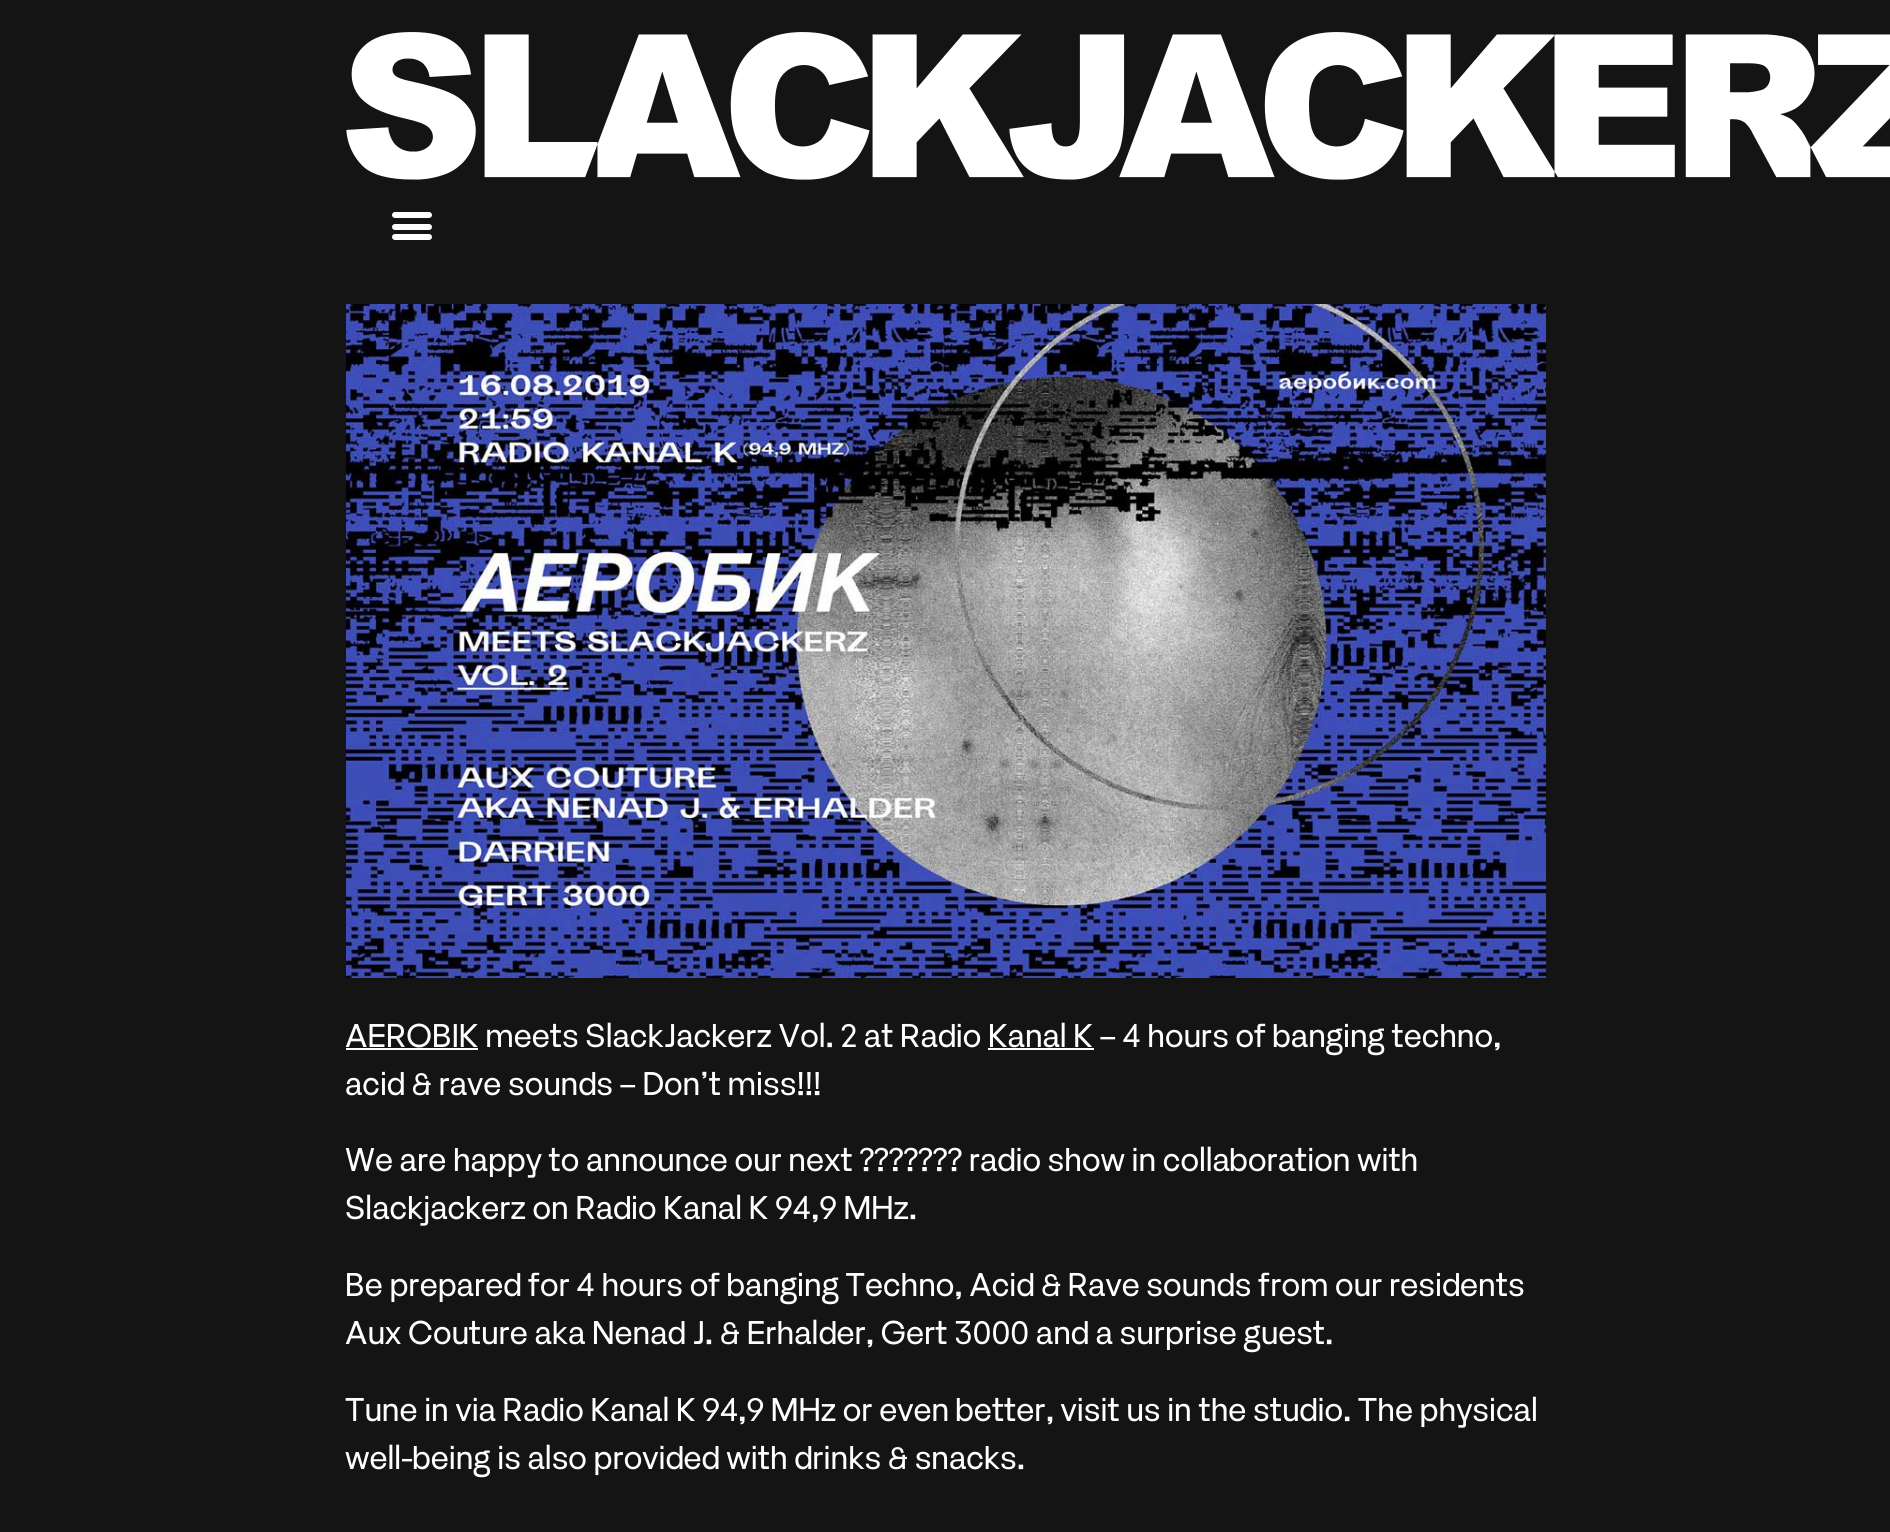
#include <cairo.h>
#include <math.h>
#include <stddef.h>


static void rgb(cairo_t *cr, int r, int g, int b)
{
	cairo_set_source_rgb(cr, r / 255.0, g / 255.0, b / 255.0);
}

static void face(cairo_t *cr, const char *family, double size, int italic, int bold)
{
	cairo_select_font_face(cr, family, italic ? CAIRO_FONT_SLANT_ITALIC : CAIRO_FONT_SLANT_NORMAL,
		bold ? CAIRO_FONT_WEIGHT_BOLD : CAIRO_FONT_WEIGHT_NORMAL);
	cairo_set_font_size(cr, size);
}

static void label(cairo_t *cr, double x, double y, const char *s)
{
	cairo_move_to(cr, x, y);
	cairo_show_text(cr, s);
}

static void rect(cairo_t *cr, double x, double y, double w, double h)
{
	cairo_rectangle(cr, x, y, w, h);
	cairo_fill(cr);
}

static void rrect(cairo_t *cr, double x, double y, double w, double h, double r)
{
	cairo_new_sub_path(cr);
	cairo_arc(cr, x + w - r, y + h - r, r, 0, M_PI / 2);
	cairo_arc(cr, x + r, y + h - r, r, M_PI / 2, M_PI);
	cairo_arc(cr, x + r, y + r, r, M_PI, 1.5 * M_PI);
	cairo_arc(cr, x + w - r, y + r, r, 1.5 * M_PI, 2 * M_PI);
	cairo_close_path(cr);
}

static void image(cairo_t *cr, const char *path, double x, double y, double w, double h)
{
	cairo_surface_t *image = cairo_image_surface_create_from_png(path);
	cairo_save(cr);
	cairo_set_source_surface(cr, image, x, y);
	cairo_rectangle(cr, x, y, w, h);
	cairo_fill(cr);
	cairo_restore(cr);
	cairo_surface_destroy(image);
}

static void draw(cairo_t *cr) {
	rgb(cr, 20, 20, 20);
	cairo_paint(cr);
	image(cr, "image0.png", 346, 32, 1544, 148);
	rgb(cr, 255, 255, 255);
	rrect(cr, 392, 224, 40, 6, 3);
	cairo_fill(cr);
	rrect(cr, 392, 212, 40, 6, 3);
	cairo_fill(cr);
	rrect(cr, 392, 234, 40, 6, 3);
	cairo_fill(cr);
	image(cr, "image1.png", 346, 304, 1200, 674);
	rect(cr, 346, 1048, 132, 2);
	face(cr, "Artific", 32, 0, 0);
	label(cr, 345, 1047, "AEROBIK meets SlackJackerz Vol. 2 at Radio Kanal K – 4 hours of banging techno,");
	rect(cr, 988, 1048, 106, 2);
	label(cr, 345, 1095, "acid & rave sounds – Don’t miss!!!");
	label(cr, 345, 1171, "We are happy to announce our next ?\077?\077?\077? radio show in collaboration with");
	label(cr, 345, 1219, "Slackjackerz on Radio Kanal K 94,9 MHz.");
	label(cr, 345, 1296, "Be prepared for 4 hours of banging Techno, Acid & Rave sounds from our residents");
	label(cr, 345, 1344, "Aux Couture aka Nenad J. & Erhalder, Gert 3000 and a surprise guest.");
	label(cr, 345, 1421, "Tune in via Radio Kanal K 94,9 MHz or even better, visit us in the studio. The physical");
	label(cr, 345, 1469, "well-being is also provided with drinks & snacks.");
}

int main(void) {
	cairo_surface_t *surface = cairo_image_surface_create(CAIRO_FORMAT_RGB24, 1890, 1532);
	cairo_t *cr = cairo_create(surface);
	cairo_font_options_t *options = cairo_font_options_create();
	cairo_font_options_set_hint_metrics(options, CAIRO_HINT_METRICS_OFF);
	cairo_font_options_set_hint_style(options, CAIRO_HINT_STYLE_NONE);
	cairo_set_font_options(cr, options);
	cairo_set_miter_limit(cr, 4);
	draw(cr);
	cairo_surface_write_to_png(surface, "render.png");
	cairo_font_options_destroy(options);
	cairo_destroy(cr);
	cairo_surface_destroy(surface);
	return 0;
}
